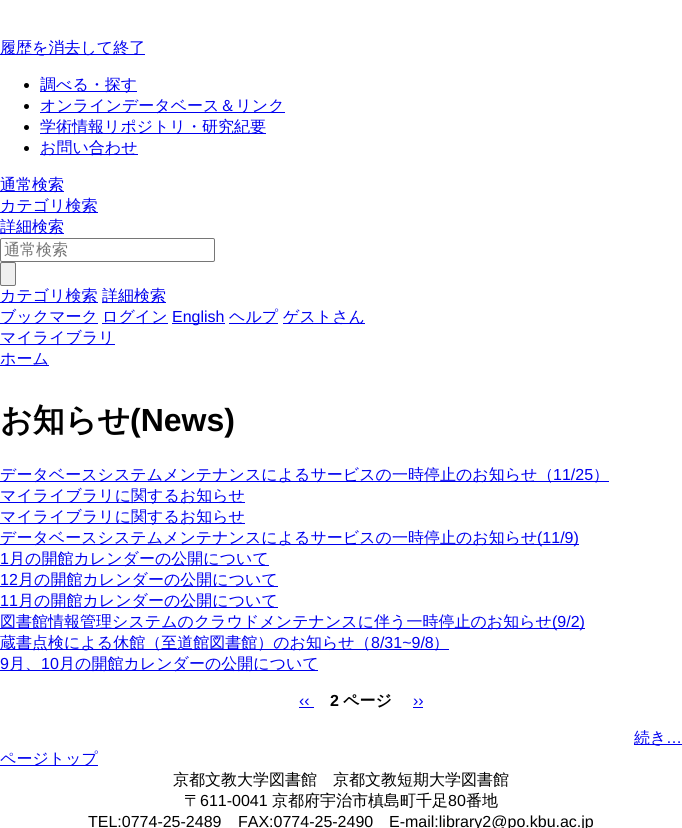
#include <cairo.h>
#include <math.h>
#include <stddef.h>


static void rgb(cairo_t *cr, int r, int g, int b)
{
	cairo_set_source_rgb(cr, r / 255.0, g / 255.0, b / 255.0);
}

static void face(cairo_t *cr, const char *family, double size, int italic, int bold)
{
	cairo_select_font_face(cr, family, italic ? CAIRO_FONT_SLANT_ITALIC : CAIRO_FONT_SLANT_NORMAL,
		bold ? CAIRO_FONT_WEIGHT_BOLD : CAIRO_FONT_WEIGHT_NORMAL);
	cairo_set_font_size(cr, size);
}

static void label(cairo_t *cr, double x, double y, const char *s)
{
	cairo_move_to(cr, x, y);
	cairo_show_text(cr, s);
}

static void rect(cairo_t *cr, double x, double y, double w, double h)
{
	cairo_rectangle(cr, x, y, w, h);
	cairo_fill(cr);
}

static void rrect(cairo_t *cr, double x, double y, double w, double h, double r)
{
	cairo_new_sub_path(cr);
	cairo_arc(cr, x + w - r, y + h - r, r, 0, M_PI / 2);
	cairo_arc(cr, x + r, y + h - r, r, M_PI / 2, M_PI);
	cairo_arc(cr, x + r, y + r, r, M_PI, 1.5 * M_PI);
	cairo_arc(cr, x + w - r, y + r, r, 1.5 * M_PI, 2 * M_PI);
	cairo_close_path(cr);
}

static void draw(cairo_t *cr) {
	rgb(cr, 255, 255, 255);
	cairo_paint(cr);
	rgb(cr, 0, 0, 238);
	rect(cr, 0, 54, 145, 1);
	face(cr, "WenQuanYi Zen Hei Medium", 16, 0, 0);
	label(cr, 0, 53, "履歴を消去して終了");
	rgb(cr, 0, 0, 0);
	cairo_new_path(cr);
	cairo_arc(cr, 26.5, 85.5, 2.5, 0, 2 * M_PI);
	cairo_fill(cr);
	rgb(cr, 0, 0, 238);
	rect(cr, 40, 91, 97, 1);
	label(cr, 40, 90, "調べる・探す");
	rgb(cr, 0, 0, 0);
	cairo_new_path(cr);
	cairo_arc(cr, 26.5, 106.5, 2.5, 0, 2 * M_PI);
	cairo_fill(cr);
	rgb(cr, 0, 0, 238);
	rect(cr, 40, 112, 245, 1);
	label(cr, 40, 111, "オンラインデータベース＆リンク");
	rgb(cr, 0, 0, 0);
	cairo_new_path(cr);
	cairo_arc(cr, 26.5, 127.5, 2.5, 0, 2 * M_PI);
	cairo_fill(cr);
	rgb(cr, 0, 0, 238);
	rect(cr, 40, 133, 226, 1);
	label(cr, 40, 132, "学術情報リポジトリ・研究紀要");
	rgb(cr, 0, 0, 0);
	cairo_new_path(cr);
	cairo_arc(cr, 26.5, 148.5, 2.5, 0, 2 * M_PI);
	cairo_fill(cr);
	rgb(cr, 0, 0, 238);
	rect(cr, 40, 154, 98, 1);
	label(cr, 40, 153, "お問い合わせ");
	rect(cr, 0, 191, 64, 1);
	label(cr, 0, 190, "通常検索");
	rect(cr, 0, 212, 98, 1);
	label(cr, 0, 211, "カテゴリ検索");
	rect(cr, 0, 233, 64, 1);
	label(cr, 0, 232, "詳細検索");
	rrect(cr, 0.5, 238.5, 214, 23, 1.5);
	rgb(cr, 118, 118, 118);
	cairo_set_line_width(cr, 1);
	cairo_stroke(cr);
	rgb(cr, 117, 117, 117);
	label(cr, 4, 255, "通常検索");
	rgb(cr, 239, 239, 239);
	rrect(cr, 0.5, 262.5, 15, 23, 1.5);
	cairo_fill_preserve(cr);
	rgb(cr, 118, 118, 118);
	cairo_stroke(cr);
	rgb(cr, 0, 0, 238);
	rect(cr, 0, 302, 98, 1);
	label(cr, 0, 301, "カテゴリ検索");
	rect(cr, 102, 302, 64, 1);
	label(cr, 102, 301, "詳細検索");
	rect(cr, 0, 323, 98, 1);
	label(cr, 0, 322, "ブックマーク");
	rect(cr, 102, 323, 66, 1);
	label(cr, 102, 322, "ログイン");
	rect(cr, 172, 323, 53, 1);
	face(cr, "Liberation Sans", 16, 0, 0);
	label(cr, 172, 322, "English");
	rect(cr, 229, 323, 49, 1);
	face(cr, "WenQuanYi Zen Hei Medium", 16, 0, 0);
	label(cr, 229, 322, "ヘルプ");
	rect(cr, 283, 323, 82, 1);
	label(cr, 283, 322, "ゲストさん");
	rect(cr, 0, 344, 115, 1);
	label(cr, 0, 343, "マイライブラリ");
	rect(cr, 0, 365, 49, 1);
	label(cr, 0, 364, "ホーム");
	face(cr, "WenQuanYi Zen Hei", 32, 0, 1);
	rgb(cr, 0, 0, 0);
	label(cr, 0, 431, "お知らせ");
	face(cr, "Liberation Sans", 32, 0, 1);
	label(cr, 130, 431, "(News)");
	rgb(cr, 0, 0, 238);
	rect(cr, 0, 481, 609, 1);
	face(cr, "WenQuanYi Zen Hei Medium", 16, 0, 0);
	label(cr, 0, 480, "データベースシステムメンテナンスによるサービスの一時停止のお知らせ（");
	face(cr, "Liberation Sans", 16, 0, 0);
	label(cr, 553, 480, "11/25");
	face(cr, "WenQuanYi Zen Hei Medium", 16, 0, 0);
	label(cr, 593, 480, "）");
	rect(cr, 0, 502, 245, 1);
	label(cr, 0, 501, "マイライブラリに関するお知らせ");
	rect(cr, 0, 523, 245, 1);
	label(cr, 0, 522, "マイライブラリに関するお知らせ");
	rect(cr, 0, 544, 579, 1);
	label(cr, 0, 543, "データベースシステムメンテナンスによるサービスの一時停止のお知らせ");
	face(cr, "Liberation Sans", 16, 0, 0);
	label(cr, 537, 543, "(11/9)");
	label(cr, 0, 564, "1");
	rect(cr, 0, 565, 269, 1);
	face(cr, "WenQuanYi Zen Hei Medium", 16, 0, 0);
	label(cr, 9, 564, "月の開館カレンダーの公開について");
	face(cr, "Liberation Sans", 16, 0, 0);
	label(cr, 0, 585, "12");
	rect(cr, 0, 586, 278, 1);
	face(cr, "WenQuanYi Zen Hei Medium", 16, 0, 0);
	label(cr, 18, 585, "月の開館カレンダーの公開について");
	face(cr, "Liberation Sans", 16, 0, 0);
	label(cr, 0, 606, "11");
	rect(cr, 0, 607, 278, 1);
	face(cr, "WenQuanYi Zen Hei Medium", 16, 0, 0);
	label(cr, 18, 606, "月の開館カレンダーの公開について");
	rect(cr, 0, 628, 585, 1);
	label(cr, 0, 627, "図書館情報管理システムのクラウドメンテナンスに伴う一時停止のお知らせ");
	face(cr, "Liberation Sans", 16, 0, 0);
	label(cr, 552, 627, "(9/2)");
	rect(cr, 0, 649, 449, 1);
	face(cr, "WenQuanYi Zen Hei Medium", 16, 0, 0);
	label(cr, 0, 648, "蔵書点検による休館（至道館図書館）のお知らせ（");
	face(cr, "Liberation Sans", 16, 0, 0);
	label(cr, 371, 648, "8/31~9/8");
	face(cr, "WenQuanYi Zen Hei Medium", 16, 0, 0);
	label(cr, 433, 648, "）");
	face(cr, "Liberation Sans", 16, 0, 0);
	label(cr, 0, 669, "9");
	rect(cr, 0, 670, 318, 1);
	face(cr, "WenQuanYi Zen Hei Medium", 16, 0, 0);
	label(cr, 9, 669, "月、");
	face(cr, "Liberation Sans", 16, 0, 0);
	label(cr, 41, 669, "10");
	face(cr, "WenQuanYi Zen Hei Medium", 16, 0, 0);
	label(cr, 59, 669, "月の開館カレンダーの公開について");
	face(cr, "Liberation Sans", 16, 0, 0);
	label(cr, 299, 706, "‹‹");
	rect(cr, 299, 707, 15, 1);
	face(cr, "Liberation Sans", 16, 0, 1);
	rgb(cr, 0, 0, 0);
	label(cr, 330, 706, "2");
	face(cr, "WenQuanYi Zen Hei", 16, 0, 1);
	label(cr, 343, 706, "ページ");
	face(cr, "Liberation Sans", 16, 0, 0);
	rgb(cr, 0, 0, 238);
	label(cr, 413, 706, "››");
	rect(cr, 413, 707, 10, 1);
	rect(cr, 634, 744, 48, 1);
	face(cr, "WenQuanYi Zen Hei Medium", 16, 0, 0);
	label(cr, 634, 743, "続き");
	face(cr, "Liberation Sans", 16, 0, 0);
	label(cr, 666, 743, "…");
	rect(cr, 0, 765, 98, 1);
	face(cr, "WenQuanYi Zen Hei Medium", 16, 0, 0);
	label(cr, 0, 764, "ページトップ");
	rgb(cr, 0, 0, 0);
	label(cr, 173, 785, "京都文教大学図書館　京都文教短期大学図書館");
	label(cr, 184, 806, "〒");
	face(cr, "Liberation Sans", 16, 0, 0);
	label(cr, 200, 806, "611-0041");
	face(cr, "WenQuanYi Zen Hei Medium", 16, 0, 0);
	label(cr, 272, 806, "京都府宇治市槙島町千足");
	face(cr, "Liberation Sans", 16, 0, 0);
	label(cr, 448, 806, "80");
	face(cr, "WenQuanYi Zen Hei Medium", 16, 0, 0);
	label(cr, 466, 806, "番地");
	face(cr, "Liberation Sans", 16, 0, 0);
	label(cr, 88, 827, "TEL:0774-25-2489");
	label(cr, 238, 827, "FAX:0774-25-2490");
	label(cr, 389, 827, "E-mail:library2@po.kbu.ac.jp");
}

int main(void) {
	cairo_surface_t *surface = cairo_image_surface_create(CAIRO_FORMAT_RGB24, 682, 828);
	cairo_t *cr = cairo_create(surface);
	cairo_font_options_t *options = cairo_font_options_create();
	cairo_font_options_set_hint_metrics(options, CAIRO_HINT_METRICS_OFF);
	cairo_font_options_set_hint_style(options, CAIRO_HINT_STYLE_NONE);
	cairo_set_font_options(cr, options);
	cairo_set_miter_limit(cr, 4);
	draw(cr);
	cairo_surface_write_to_png(surface, "render.png");
	cairo_font_options_destroy(options);
	cairo_destroy(cr);
	cairo_surface_destroy(surface);
	return 0;
}
